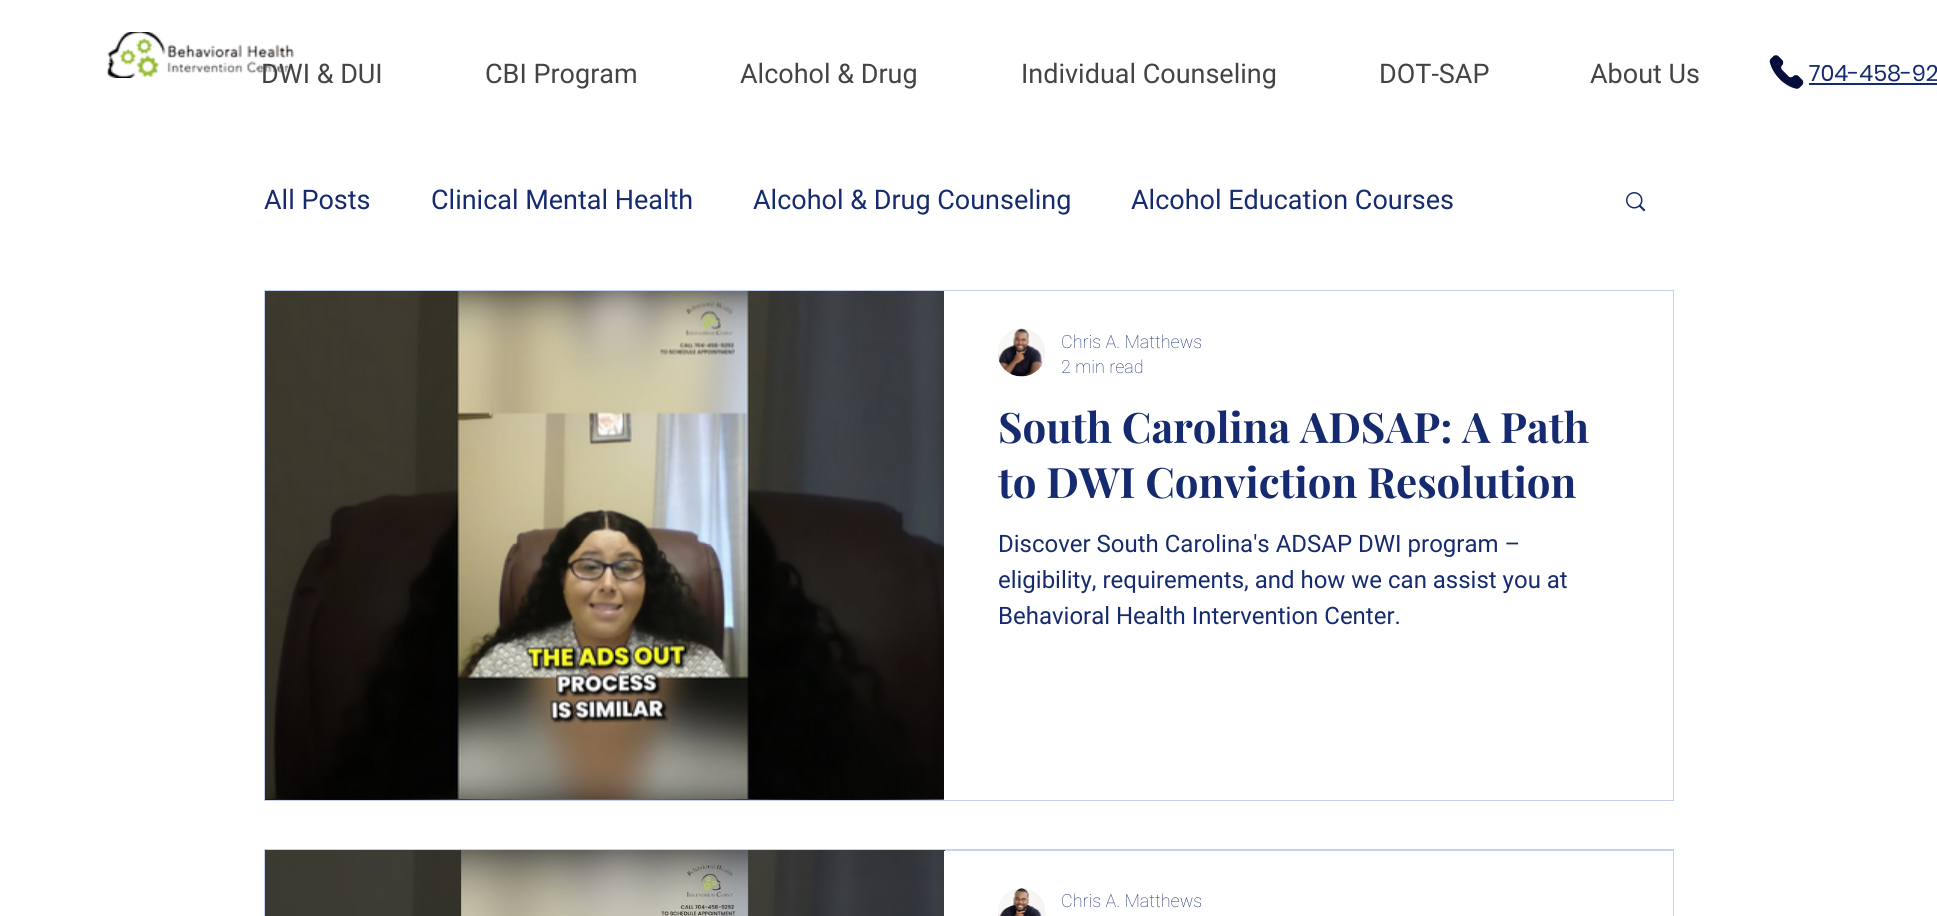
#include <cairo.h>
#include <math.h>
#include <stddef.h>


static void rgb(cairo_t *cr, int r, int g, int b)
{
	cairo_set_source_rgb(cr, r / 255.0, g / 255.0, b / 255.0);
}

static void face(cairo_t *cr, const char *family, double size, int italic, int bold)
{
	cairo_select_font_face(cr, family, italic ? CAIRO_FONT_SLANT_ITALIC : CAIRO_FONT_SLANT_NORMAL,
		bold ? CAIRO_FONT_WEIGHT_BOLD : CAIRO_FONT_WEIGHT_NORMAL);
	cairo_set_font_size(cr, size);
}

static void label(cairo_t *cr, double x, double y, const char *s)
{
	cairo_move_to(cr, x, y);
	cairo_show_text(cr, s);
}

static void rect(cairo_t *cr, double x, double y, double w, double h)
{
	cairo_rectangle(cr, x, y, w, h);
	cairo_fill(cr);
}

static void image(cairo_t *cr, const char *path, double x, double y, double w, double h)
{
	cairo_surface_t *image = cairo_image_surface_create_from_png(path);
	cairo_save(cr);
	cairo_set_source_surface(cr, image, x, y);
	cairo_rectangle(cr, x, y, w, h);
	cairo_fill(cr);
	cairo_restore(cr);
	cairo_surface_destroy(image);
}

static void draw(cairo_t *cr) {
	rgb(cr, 255, 255, 255);
	cairo_paint(cr);
	image(cr, "image0.png", 106, 32, 189, 46);
	face(cr, "Roboto", 27, 0, 0);
	rgb(cr, 68, 68, 68);
	label(cr, 261, 83, "DWI & DUI");
	label(cr, 485, 83, "CBI Program");
	label(cr, 740, 83, "Alcohol & Drug");
	label(cr, 1021, 83, "Individual Counseling");
	label(cr, 1379, 83, "DOT-SAP");
	label(cr, 1590, 83, "About Us");
	image(cr, "image1.png", 1769, 55, 35, 34);
	face(cr, "Poppins", 22.5, 0, 0);
	rgb(cr, 22, 43, 111);
	label(cr, 1809, 81, "704-458-92");
	rect(cr, 1809, 83, 128, 2);
	face(cr, "Roboto", 27, 0, 0);
	label(cr, 264, 209, "All Posts");
	label(cr, 431, 209, "Clinical Mental Health");
	label(cr, 753, 209, "Alcohol & Drug Counseling");
	label(cr, 1131, 209, "Alcohol Education Courses");
	image(cr, "image2.png", 1626, 192, 20, 20);
	cairo_rectangle(cr, 265, 291, 1408, 509);
	rgb(cr, 196, 207, 243);
	cairo_stroke(cr);
	image(cr, "image3.png", 265, 291, 679, 508);
	image(cr, "image4.png", 265, 799, 679, 1);
	rgb(cr, 255, 255, 255);
	rect(cr, 944, 291, 729, 509);
	image(cr, "image5.png", 998, 328, 48, 49);
	face(cr, "Roboto Thin", 18, 0, 0);
	rgb(cr, 22, 43, 111);
	label(cr, 1061, 348, "Chris A. Matthews");
	label(cr, 1061, 373, "2 min read");
	face(cr, "Playfair Display", 42, 0, 1);
	label(cr, 998, 443, "South Carolina ADSAP: A Path");
	label(cr, 998, 498, "to DWI Conviction Resolution");
	face(cr, "Roboto", 24, 0, 0);
	label(cr, 998, 552, "Discover South Carolina's ADSAP DWI program –");
	label(cr, 998, 588, "eligibility, requirements, and how we can assist you at");
	label(cr, 998, 624, "Behavioral Health Intervention Center.");
	cairo_rectangle(cr, 265, 850, 1408, 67);
	rgb(cr, 196, 207, 243);
	cairo_stroke(cr);
	image(cr, "image6.png", 265, 850, 680, 66);
	image(cr, "image7.png", 944, 850, 1, 1);
	rgb(cr, 255, 255, 255);
	rect(cr, 944, 851, 729, 65);
	image(cr, "image8.png", 998, 888, 48, 28);
	face(cr, "Roboto Thin", 18, 0, 0);
	rgb(cr, 22, 43, 111);
	label(cr, 1061, 907, "Chris A. Matthews");
}

int main(void) {
	cairo_surface_t *surface = cairo_image_surface_create(CAIRO_FORMAT_RGB24, 1937, 916);
	cairo_t *cr = cairo_create(surface);
	cairo_font_options_t *options = cairo_font_options_create();
	cairo_font_options_set_hint_metrics(options, CAIRO_HINT_METRICS_OFF);
	cairo_font_options_set_hint_style(options, CAIRO_HINT_STYLE_NONE);
	cairo_set_font_options(cr, options);
	cairo_set_miter_limit(cr, 4);
	draw(cr);
	cairo_surface_write_to_png(surface, "render.png");
	cairo_font_options_destroy(options);
	cairo_destroy(cr);
	cairo_surface_destroy(surface);
	return 0;
}
